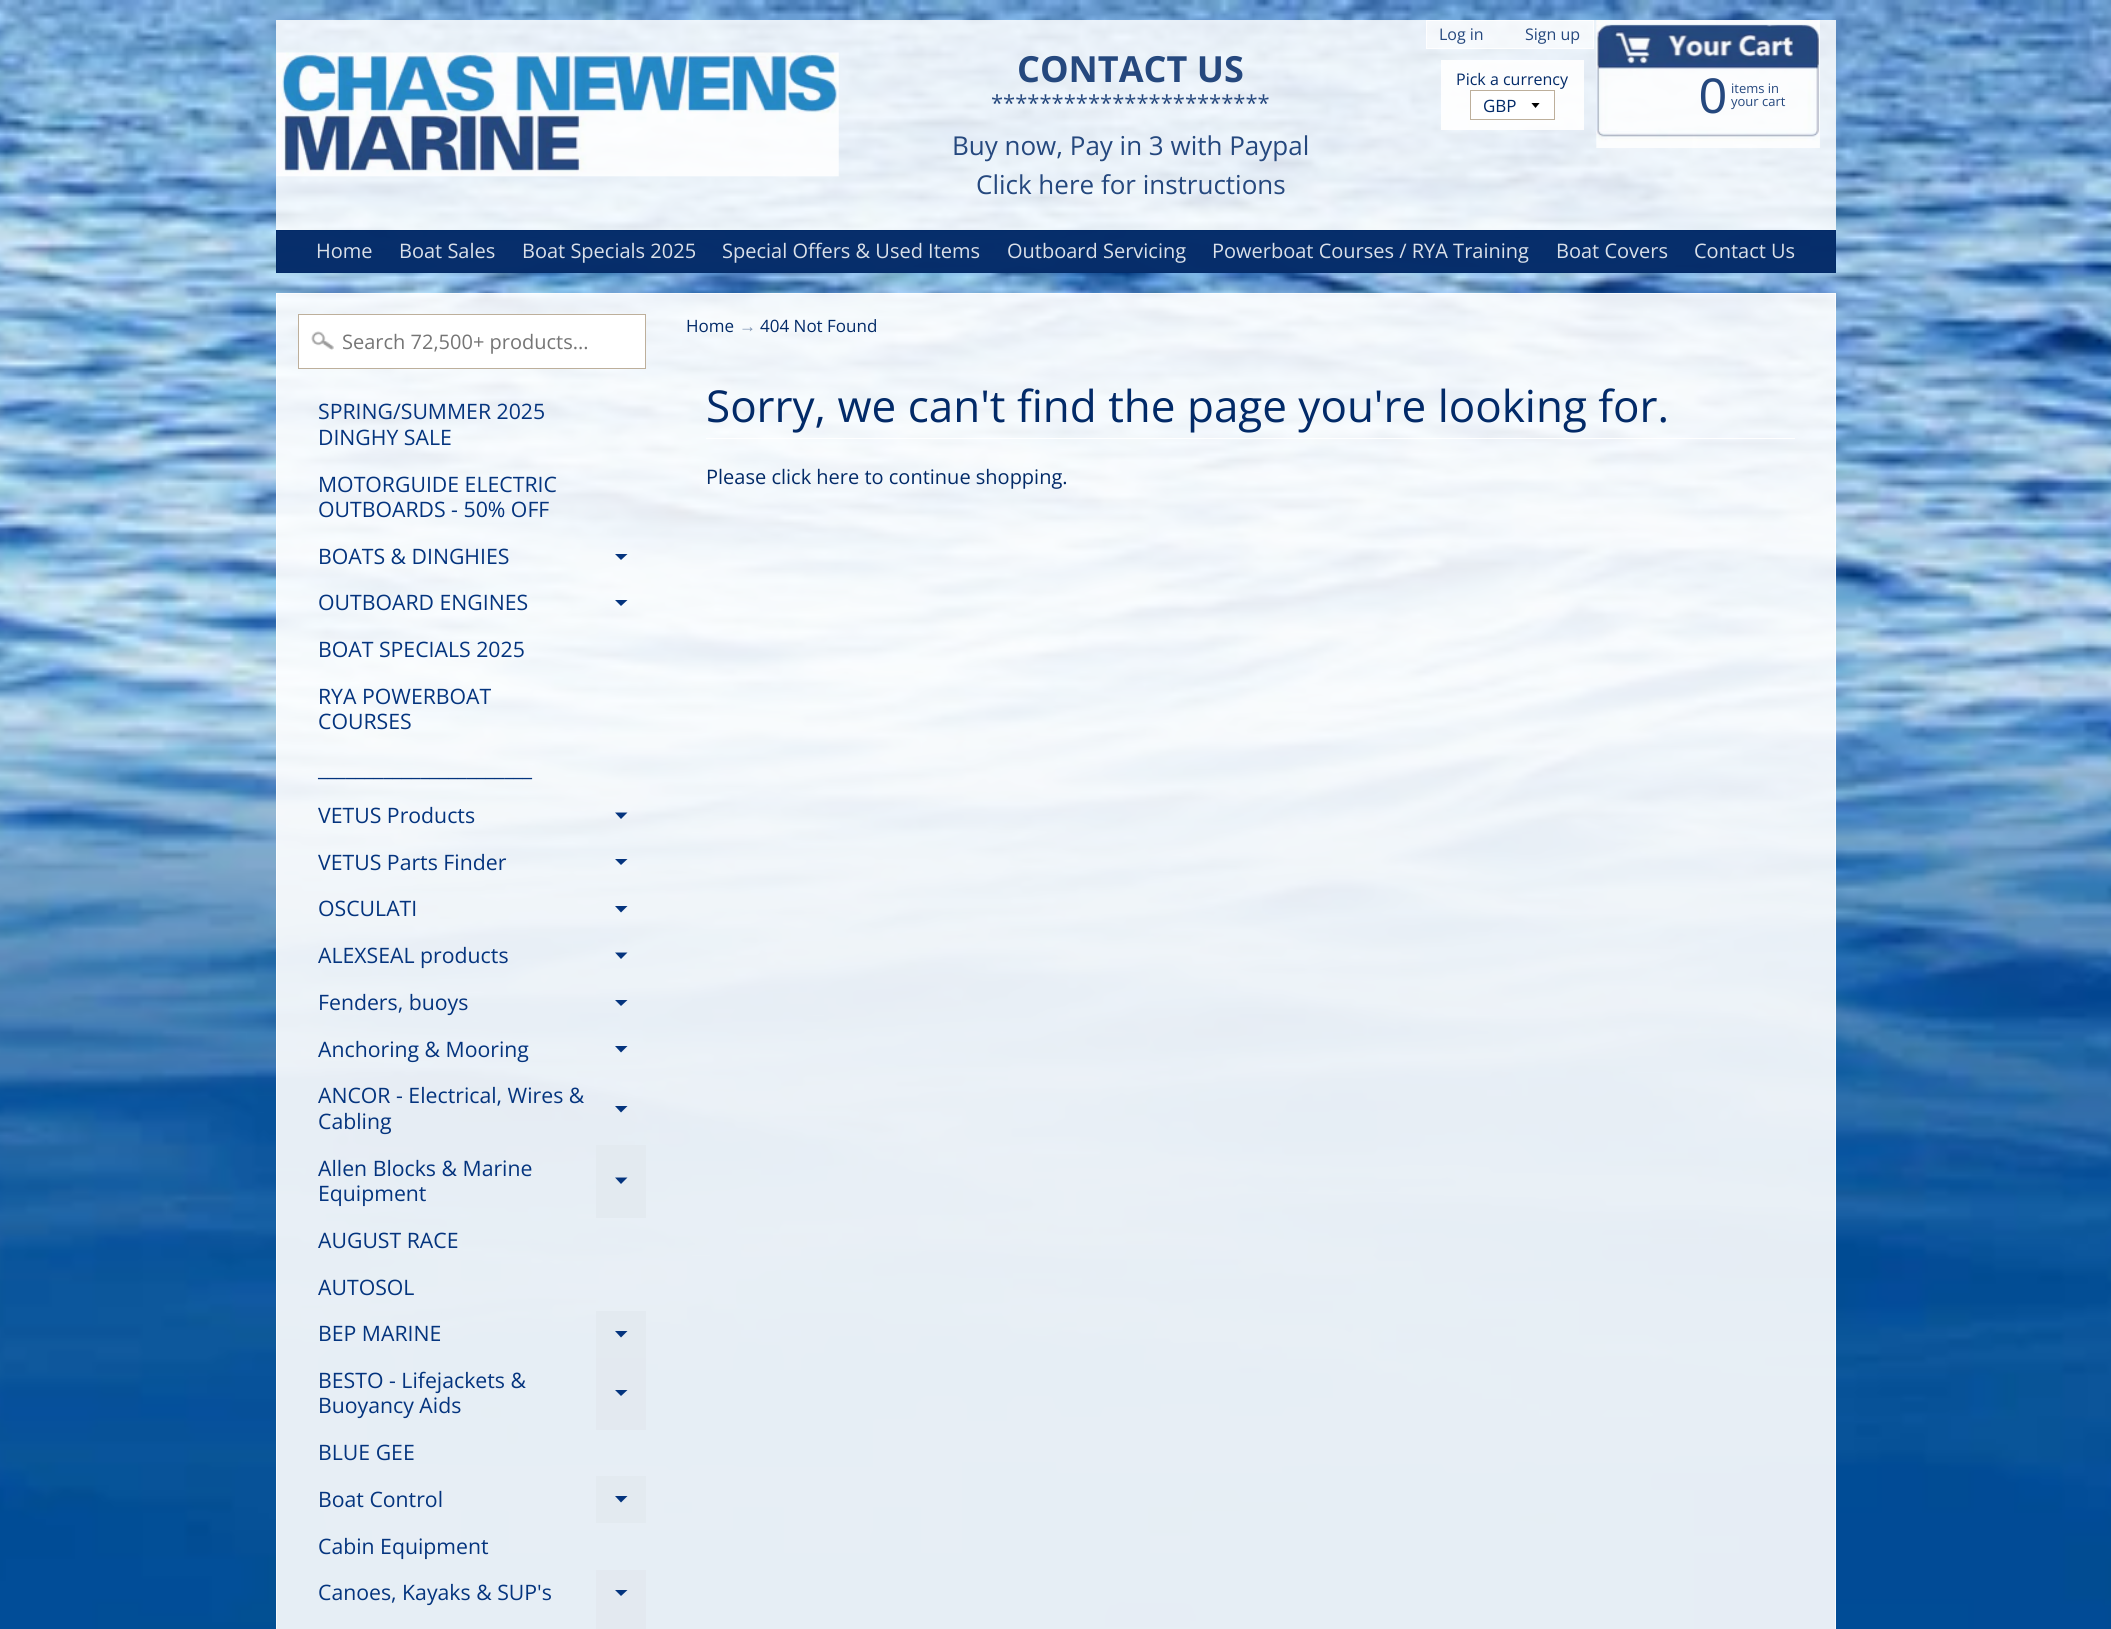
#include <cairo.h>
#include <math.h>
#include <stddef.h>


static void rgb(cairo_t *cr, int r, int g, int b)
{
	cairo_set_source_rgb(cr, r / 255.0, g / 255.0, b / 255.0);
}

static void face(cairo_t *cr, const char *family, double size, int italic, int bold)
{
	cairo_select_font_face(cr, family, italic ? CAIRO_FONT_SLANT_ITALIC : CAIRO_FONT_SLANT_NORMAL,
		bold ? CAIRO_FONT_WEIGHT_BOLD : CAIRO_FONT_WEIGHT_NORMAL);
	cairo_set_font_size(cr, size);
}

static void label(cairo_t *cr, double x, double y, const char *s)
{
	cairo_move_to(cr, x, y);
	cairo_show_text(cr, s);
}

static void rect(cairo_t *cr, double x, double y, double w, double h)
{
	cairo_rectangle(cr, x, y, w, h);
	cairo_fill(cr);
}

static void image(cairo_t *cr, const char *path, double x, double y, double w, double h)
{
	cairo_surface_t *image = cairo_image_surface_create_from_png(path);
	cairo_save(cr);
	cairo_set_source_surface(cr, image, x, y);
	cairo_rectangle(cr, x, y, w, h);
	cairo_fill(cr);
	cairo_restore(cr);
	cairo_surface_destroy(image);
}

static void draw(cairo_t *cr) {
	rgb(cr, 255, 255, 255);
	cairo_paint(cr);
	image(cr, "image0.png", 0, 0, 2111, 1629);
	cairo_set_source_rgba(cr, 1, 1, 1, 0.85);
	rect(cr, 276, 20, 1560, 252);
	cairo_set_source_rgba(cr, 1, 1, 1, 0.59);
	rect(cr, 1426, 20, 168, 29);
	cairo_rectangle(cr, 1426.5, 20.5, 167, 28);
	cairo_set_source_rgba(cr, 1, 1, 1, 0.85);
	cairo_set_line_width(cr, 1);
	cairo_stroke(cr);
	face(cr, "Open Sans", 16, 0, 0);
	rgb(cr, 37, 72, 126);
	label(cr, 1439, 40, "Log in");
	label(cr, 1525, 40, "Sign up");
	image(cr, "image1.png", 276, 52, 563, 125);
	face(cr, "Open Sans", 36, 0, 1);
	label(cr, 1017, 82, "CONTACT US");
	face(cr, "Open Sans", 22, 0, 0);
	label(cr, 991, 111, "***********************");
	face(cr, "Open Sans", 26, 0, 0);
	label(cr, 952, 155, "Buy now, Pay in 3 with Paypal");
	label(cr, 976, 194, "Click here for instructions");
	image(cr, "image2.png", 1596, 20, 224, 128);
	face(cr, "Liberation Sans", 50, 0, 0);
	label(cr, 1699, 113, "0");
	face(cr, "Open Sans", 13, 0, 0);
	label(cr, 1731, 93, "items in");
	label(cr, 1731, 106, "your cart");
	cairo_set_source_rgba(cr, 0.008, 0.165, 0.408, 0.85);
	rect(cr, 277, 231, 1558, 41);
	cairo_rectangle(cr, 276.5, 230.5, 1559, 42);
	cairo_fill_preserve(cr);
	rgb(cr, 3, 43, 104);
	cairo_stroke(cr);
	face(cr, "Open Sans", 20, 0, 0);
	rgb(cr, 218, 224, 233);
	label(cr, 316, 258, "Home");
	label(cr, 399, 258, "Boat Sales");
	label(cr, 522, 258, "Boat Specials 2025");
	label(cr, 722, 258, "Special Offers & Used Items");
	label(cr, 1007, 258, "Outboard Servicing");
	label(cr, 1212, 258, "Powerboat Courses / RYA Training");
	label(cr, 1556, 258, "Boat Covers");
	label(cr, 1694, 258, "Contact Us");
	cairo_set_source_rgba(cr, 1, 1, 1, 0.9);
	rect(cr, 1441, 60, 143, 70);
	face(cr, "Open Sans", 16, 0, 0);
	rgb(cr, 2, 42, 104);
	label(cr, 1456, 85, "Pick a currency");
	rgb(cr, 255, 255, 255);
	rect(cr, 1471, 91, 83, 28);
	cairo_save(cr);
	cairo_rectangle(cr, 1531, 103, 10, 6);
	cairo_clip(cr);
	rgb(cr, 0, 0, 0);
	cairo_new_path(cr);
	cairo_move_to(cr, 1531, 102.5);
	cairo_line_to(cr, 1535.5, 108);
	cairo_line_to(cr, 1540, 102.5);
	cairo_close_path(cr);
	cairo_fill(cr);
	cairo_restore(cr);
	cairo_rectangle(cr, 1470.5, 90.5, 84, 29);
	rgb(cr, 189, 175, 155);
	cairo_stroke(cr);
	face(cr, "Open Sans", 17, 0, 0);
	rgb(cr, 2, 42, 104);
	label(cr, 1483, 112, "GBP");
	cairo_set_source_rgba(cr, 1, 1, 1, 0.9);
	rect(cr, 276, 293, 1560, 1336);
	cairo_rectangle(cr, 276.5, 293.5, 1559, 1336);
	cairo_set_source_rgba(cr, 1, 1, 1, 0.7);
	cairo_stroke(cr);
	rgb(cr, 255, 255, 255);
	rect(cr, 299, 315, 346, 53);
	image(cr, "image3.png", 311, 331, 23, 19);
	cairo_rectangle(cr, 298.5, 314.5, 347, 54);
	rgb(cr, 189, 175, 155);
	cairo_stroke(cr);
	face(cr, "Open Sans", 20, 0, 0);
	rgb(cr, 117, 117, 117);
	label(cr, 342, 349, "Search 72,500+ products...");
	face(cr, "Open Sans", 21.25, 0, 0);
	rgb(cr, 4, 52, 126);
	label(cr, 318, 419, "SPRING/SUMMER 2025");
	label(cr, 318, 445, "DINGHY SALE");
	label(cr, 318, 492, "MOTORGUIDE ELECTRIC");
	label(cr, 318, 517, "OUTBOARDS - 50% OFF");
	label(cr, 318, 564, "BOATS & DINGHIES");
	cairo_new_path(cr);
	cairo_move_to(cr, 615, 554);
	cairo_line_to(cr, 627.5, 554);
	cairo_line_to(cr, 621, 560);
	cairo_close_path(cr);
	cairo_fill(cr);
	label(cr, 318, 610, "OUTBOARD ENGINES");
	cairo_new_path(cr);
	cairo_move_to(cr, 615, 600);
	cairo_line_to(cr, 627.5, 600);
	cairo_line_to(cr, 621, 606);
	cairo_close_path(cr);
	cairo_fill(cr);
	label(cr, 318, 657, "BOAT SPECIALS 2025");
	label(cr, 318, 704, "RYA POWERBOAT");
	label(cr, 318, 729, "COURSES");
	label(cr, 318, 776, "_______________________");
	label(cr, 318, 823, "VETUS Products");
	cairo_new_path(cr);
	cairo_move_to(cr, 615, 812.5);
	cairo_line_to(cr, 627.5, 812.5);
	cairo_line_to(cr, 621, 819);
	cairo_close_path(cr);
	cairo_fill(cr);
	label(cr, 318, 870, "VETUS Parts Finder");
	cairo_new_path(cr);
	cairo_move_to(cr, 615, 859);
	cairo_line_to(cr, 627.5, 859);
	cairo_line_to(cr, 621, 865);
	cairo_close_path(cr);
	cairo_fill(cr);
	label(cr, 318, 916, "OSCULATI");
	cairo_new_path(cr);
	cairo_move_to(cr, 615, 906);
	cairo_line_to(cr, 627.5, 906);
	cairo_line_to(cr, 621, 912.5);
	cairo_close_path(cr);
	cairo_fill(cr);
	label(cr, 318, 963, "ALEXSEAL products");
	cairo_new_path(cr);
	cairo_move_to(cr, 615, 952.5);
	cairo_line_to(cr, 627.5, 952.5);
	cairo_line_to(cr, 621, 959);
	cairo_close_path(cr);
	cairo_fill(cr);
	label(cr, 318, 1010, "Fenders, buoys");
	cairo_new_path(cr);
	cairo_move_to(cr, 615, 1000);
	cairo_line_to(cr, 627.5, 1000);
	cairo_line_to(cr, 621, 1006);
	cairo_close_path(cr);
	cairo_fill(cr);
	label(cr, 318, 1057, "Anchoring & Mooring");
	cairo_new_path(cr);
	cairo_move_to(cr, 615, 1046);
	cairo_line_to(cr, 627.5, 1046);
	cairo_line_to(cr, 621, 1052.5);
	cairo_close_path(cr);
	cairo_fill(cr);
	label(cr, 318, 1103, "ANCOR - Electrical, Wires &");
	cairo_new_path(cr);
	cairo_move_to(cr, 615, 1106);
	cairo_line_to(cr, 627.5, 1106);
	cairo_line_to(cr, 621, 1112.5);
	cairo_close_path(cr);
	cairo_fill(cr);
	label(cr, 318, 1129, "Cabling");
	label(cr, 318, 1176, "Allen Blocks & Marine");
	rgb(cr, 227, 234, 240);
	rect(cr, 596, 1145, 50, 73);
	rgb(cr, 4, 52, 126);
	cairo_new_path(cr);
	cairo_move_to(cr, 615, 1177.5);
	cairo_line_to(cr, 627.5, 1177.5);
	cairo_line_to(cr, 621, 1184);
	cairo_close_path(cr);
	cairo_fill(cr);
	label(cr, 318, 1201, "Equipment");
	label(cr, 318, 1248, "AUGUST RACE");
	label(cr, 318, 1295, "AUTOSOL");
	label(cr, 318, 1341, "BEP MARINE");
	rgb(cr, 227, 234, 240);
	rect(cr, 596, 1311, 50, 47);
	rgb(cr, 4, 52, 126);
	cairo_new_path(cr);
	cairo_move_to(cr, 615, 1331);
	cairo_line_to(cr, 627.5, 1331);
	cairo_line_to(cr, 621, 1337.5);
	cairo_close_path(cr);
	cairo_fill(cr);
	label(cr, 318, 1388, "BESTO - Lifejackets &");
	rgb(cr, 227, 233, 240);
	rect(cr, 596, 1358, 50, 72);
	rgb(cr, 4, 52, 126);
	cairo_new_path(cr);
	cairo_move_to(cr, 615, 1390);
	cairo_line_to(cr, 627.5, 1390);
	cairo_line_to(cr, 621, 1396);
	cairo_close_path(cr);
	cairo_fill(cr);
	label(cr, 318, 1413, "Buoyancy Aids");
	label(cr, 318, 1460, "BLUE GEE");
	label(cr, 318, 1507, "Boat Control");
	rgb(cr, 227, 234, 240);
	rect(cr, 596, 1476, 50, 47);
	rgb(cr, 4, 52, 126);
	cairo_new_path(cr);
	cairo_move_to(cr, 615, 1496);
	cairo_line_to(cr, 627.5, 1496);
	cairo_line_to(cr, 621, 1502.5);
	cairo_close_path(cr);
	cairo_fill(cr);
	label(cr, 318, 1554, "Cabin Equipment");
	label(cr, 318, 1600, "Canoes, Kayaks & SUP's");
	rgb(cr, 227, 233, 240);
	rect(cr, 596, 1570, 50, 59);
	rgb(cr, 4, 52, 126);
	cairo_new_path(cr);
	cairo_move_to(cr, 615, 1590);
	cairo_line_to(cr, 627.5, 1590);
	cairo_line_to(cr, 621, 1596);
	cairo_close_path(cr);
	cairo_fill(cr);
	face(cr, "Open Sans", 17, 0, 0);
	rgb(cr, 2, 42, 104);
	label(cr, 686, 332, "Home");
	face(cr, "Liberation Sans", 17, 0, 0);
	rgb(cr, 124, 146, 178);
	label(cr, 739, 332, "→");
	face(cr, "Open Sans", 17, 0, 0);
	rgb(cr, 2, 42, 104);
	label(cr, 760, 332, "404 Not Found");
	rgb(cr, 255, 255, 255);
	rect(cr, 706, 438, 1089, 1);
	face(cr, "Open Sans", 44, 0, 0);
	rgb(cr, 2, 42, 104);
	label(cr, 706, 422, "Sorry, we can't find the page you're looking for.");
	face(cr, "Open Sans", 20, 0, 0);
	label(cr, 706, 484, "Please click here to continue shopping.");
}

int main(void) {
	cairo_surface_t *surface = cairo_image_surface_create(CAIRO_FORMAT_RGB24, 2111, 1629);
	cairo_t *cr = cairo_create(surface);
	cairo_font_options_t *options = cairo_font_options_create();
	cairo_font_options_set_hint_metrics(options, CAIRO_HINT_METRICS_OFF);
	cairo_font_options_set_hint_style(options, CAIRO_HINT_STYLE_NONE);
	cairo_set_font_options(cr, options);
	cairo_set_miter_limit(cr, 4);
	draw(cr);
	cairo_surface_write_to_png(surface, "render.png");
	cairo_font_options_destroy(options);
	cairo_destroy(cr);
	cairo_surface_destroy(surface);
	return 0;
}
